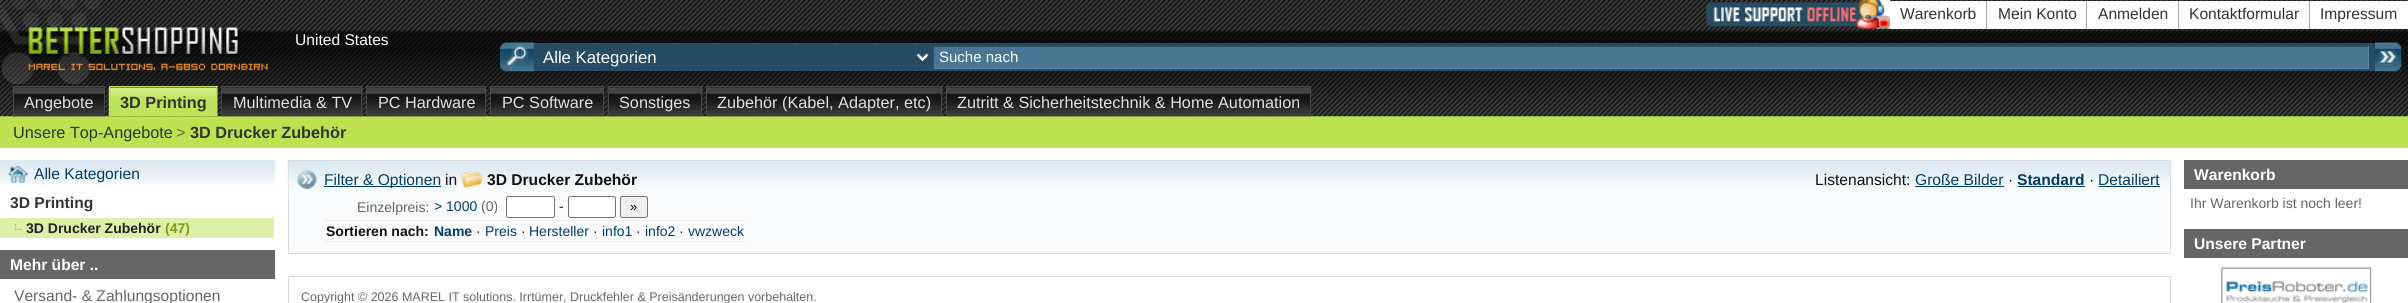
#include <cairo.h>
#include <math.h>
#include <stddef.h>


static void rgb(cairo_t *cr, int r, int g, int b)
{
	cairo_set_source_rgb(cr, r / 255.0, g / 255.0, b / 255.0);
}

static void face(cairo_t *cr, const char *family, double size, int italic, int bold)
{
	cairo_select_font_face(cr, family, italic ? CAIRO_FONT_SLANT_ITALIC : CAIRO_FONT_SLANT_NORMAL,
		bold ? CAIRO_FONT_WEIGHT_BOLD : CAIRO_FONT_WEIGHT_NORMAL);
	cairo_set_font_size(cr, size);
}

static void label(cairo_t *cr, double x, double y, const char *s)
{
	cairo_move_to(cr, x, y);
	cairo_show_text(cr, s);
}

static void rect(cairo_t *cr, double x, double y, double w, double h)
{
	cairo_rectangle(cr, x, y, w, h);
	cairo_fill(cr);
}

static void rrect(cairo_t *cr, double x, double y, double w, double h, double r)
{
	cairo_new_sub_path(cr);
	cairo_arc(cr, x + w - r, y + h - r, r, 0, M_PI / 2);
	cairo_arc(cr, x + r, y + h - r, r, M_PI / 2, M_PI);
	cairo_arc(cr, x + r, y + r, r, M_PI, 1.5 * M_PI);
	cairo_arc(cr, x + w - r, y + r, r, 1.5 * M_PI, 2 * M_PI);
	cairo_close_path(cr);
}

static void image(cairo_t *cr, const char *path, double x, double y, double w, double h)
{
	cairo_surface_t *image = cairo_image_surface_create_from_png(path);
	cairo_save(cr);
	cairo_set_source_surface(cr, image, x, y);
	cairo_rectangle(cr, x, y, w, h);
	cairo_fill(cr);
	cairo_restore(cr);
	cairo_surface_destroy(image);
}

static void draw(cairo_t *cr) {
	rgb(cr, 255, 255, 255);
	cairo_paint(cr);
	rgb(cr, 188, 226, 79);
	rect(cr, 0, 116, 2408, 32);
	image(cr, "image0.png", 0, 0, 2408, 117);
	image(cr, "image1.png", 0, 0, 270, 85);
	image(cr, "image2.png", 1706, 0, 184, 29);
	rgb(cr, 255, 255, 255);
	rect(cr, 1890, 1, 288, 28);
	rgb(cr, 170, 170, 170);
	rect(cr, 1986, 1, 1, 28);
	face(cr, "Liberation Sans", 15.6, 0, 0);
	rgb(cr, 51, 51, 51);
	label(cr, 1900, 19, "Warenkorb");
	rgb(cr, 170, 170, 170);
	rect(cr, 2086, 1, 1, 28);
	rgb(cr, 51, 51, 51);
	label(cr, 1998, 19, "Mein Konto");
	rgb(cr, 170, 170, 170);
	rect(cr, 2178, 1, 1, 28);
	rgb(cr, 51, 51, 51);
	label(cr, 2098, 19, "Anmelden");
	rgb(cr, 255, 255, 255);
	rect(cr, 2179, 1, 130, 28);
	rgb(cr, 170, 170, 170);
	rect(cr, 2309, 1, 1, 28);
	rgb(cr, 51, 51, 51);
	label(cr, 2189, 19, "Kontaktformular");
	rgb(cr, 255, 255, 255);
	rect(cr, 2310, 1, 98, 28);
	rgb(cr, 51, 51, 51);
	label(cr, 2320, 19, "Impressum");
	rgb(cr, 255, 255, 255);
	label(cr, 295, 45, "United States");
	rgb(cr, 37, 76, 98);
	rect(cr, 533, 43, 1842, 28);
	image(cr, "image3.png", 500, 42, 34, 30);
	cairo_new_path(cr);
	cairo_move_to(cr, 917.5, 54.5);
	cairo_line_to(cr, 922.5, 59.5);
	cairo_line_to(cr, 927.5, 54.5);
	rgb(cr, 255, 255, 255);
	cairo_set_line_width(cr, 2.5);
	cairo_stroke(cr);
	face(cr, "Liberation Sans", 16.75, 0, 0);
	label(cr, 543, 63, "Alle Kategorien");
	rgb(cr, 71, 119, 147);
	rect(cr, 934, 47, 1434, 21);
	rgb(cr, 50, 84, 104);
	rect(cr, 933, 46, 1436, 1);
	rgb(cr, 92, 134, 159);
	rect(cr, 2368, 46, 1, 23);
	rect(cr, 933, 68, 1436, 1);
	rgb(cr, 50, 84, 104);
	rect(cr, 933, 46, 1, 23);
	face(cr, "Liberation Sans", 15, 0, 0);
	rgb(cr, 255, 255, 255);
	label(cr, 939, 62, "Suche nach");
	image(cr, "image4.png", 2375, 42, 27, 30);
	image(cr, "image5.png", 12, 87, 93, 30);
	rgb(cr, 71, 71, 71);
	rect(cr, 13, 86, 92, 1);
	rect(cr, 104, 86, 1, 30);
	rect(cr, 13, 86, 1, 30);
	face(cr, "Liberation Sans", 16.25, 0, 0);
	rgb(cr, 224, 224, 224);
	label(cr, 24, 108, "Angebote");
	image(cr, "image6.png", 108, 87, 110, 30);
	rgb(cr, 188, 226, 79);
	rect(cr, 109, 86, 109, 1);
	rect(cr, 216, 86, 1, 30);
	rect(cr, 109, 86, 1, 30);
	face(cr, "Liberation Sans", 16.25, 0, 1);
	rgb(cr, 51, 51, 51);
	label(cr, 120, 108, "3D Printing");
	image(cr, "image7.png", 221, 87, 142, 30);
	rgb(cr, 71, 71, 71);
	rect(cr, 221, 86, 142, 1);
	rect(cr, 361, 86, 1, 30);
	rect(cr, 221, 86, 1, 30);
	face(cr, "Liberation Sans", 16.25, 0, 0);
	rgb(cr, 224, 224, 224);
	label(cr, 233, 108, "Multimedia & TV");
	image(cr, "image8.png", 366, 87, 121, 30);
	rgb(cr, 71, 71, 71);
	rect(cr, 366, 86, 120, 1);
	rect(cr, 485, 86, 1, 30);
	rect(cr, 366, 86, 1, 30);
	rgb(cr, 224, 224, 224);
	label(cr, 378, 108, "PC Hardware");
	image(cr, "image9.png", 490, 87, 114, 30);
	rgb(cr, 71, 71, 71);
	rect(cr, 490, 86, 114, 1);
	rect(cr, 603, 86, 1, 30);
	rect(cr, 490, 86, 1, 30);
	rgb(cr, 224, 224, 224);
	label(cr, 502, 108, "PC Software");
	image(cr, "image10.png", 607, 87, 96, 30);
	rgb(cr, 71, 71, 71);
	rect(cr, 608, 86, 95, 1);
	rect(cr, 701, 86, 1, 30);
	rect(cr, 608, 86, 1, 30);
	rgb(cr, 224, 224, 224);
	label(cr, 619, 108, "Sonstiges");
	image(cr, "image11.png", 706, 87, 237, 30);
	rgb(cr, 71, 71, 71);
	rect(cr, 706, 86, 237, 1);
	rect(cr, 941, 86, 1, 30);
	rect(cr, 706, 86, 1, 30);
	rgb(cr, 224, 224, 224);
	label(cr, 717, 108, "Zubehör (Kabel, Adapter, etc)");
	image(cr, "image12.png", 946, 87, 366, 30);
	rgb(cr, 71, 71, 71);
	rect(cr, 946, 86, 365, 1);
	rect(cr, 1310, 86, 1, 30);
	rect(cr, 946, 86, 1, 30);
	rgb(cr, 224, 224, 224);
	label(cr, 957, 108, "Zutritt & Sicherheitstechnik & Home Automation");
	rgb(cr, 51, 51, 51);
	label(cr, 13, 138, "Unsere Top-Angebote");
	rgb(cr, 102, 102, 102);
	label(cr, 176, 138, ">");
	face(cr, "Liberation Sans", 16.25, 0, 1);
	rgb(cr, 51, 51, 51);
	label(cr, 190, 138, "3D Drucker Zubehör");
	rgb(cr, 249, 251, 252);
	rect(cr, 0, 184, 275, 4);
	image(cr, "image13.png", 0, 160, 275, 24);
	image(cr, "image14.png", 8, 166, 20, 17);
	face(cr, "Liberation Sans", 15.6, 0, 0);
	rgb(cr, 0, 61, 111);
	label(cr, 34, 179, "Alle Kategorien");
	face(cr, "Liberation Sans", 15.6, 0, 1);
	rgb(cr, 51, 51, 51);
	label(cr, 10, 208, "3D Printing");
	rgb(cr, 220, 240, 167);
	rect(cr, 0, 218, 274, 20);
	image(cr, "image15.png", 14, 223, 8, 8);
	face(cr, "Liberation Sans", 14, 0, 1);
	rgb(cr, 34, 34, 34);
	label(cr, 26, 233, "3D Drucker Zubehör");
	rgb(cr, 122, 159, 19);
	label(cr, 165, 233, "(47)");
	rgb(cr, 102, 102, 102);
	rect(cr, 0, 250, 275, 29);
	face(cr, "Liberation Sans", 15.6, 0, 1);
	rgb(cr, 255, 255, 255);
	label(cr, 10, 270, "Mehr über ..");
	face(cr, "Liberation Sans", 15.6, 0, 0);
	rgb(cr, 102, 102, 102);
	label(cr, 14, 301, "Versand- & Zahlungsoptionen");
	rgb(cr, 249, 251, 252);
	rect(cr, 289, 161, 1881, 92);
	image(cr, "image16.png", 287, 161, 1885, 28);
	cairo_rectangle(cr, 288.5, 160.5, 1882, 93);
	rgb(cr, 218, 219, 221);
	cairo_set_line_width(cr, 1);
	cairo_stroke(cr);
	image(cr, "image17.png", 288, 161, 37, 35);
	rgb(cr, 0, 61, 111);
	rect(cr, 324, 186, 117, 1);
	label(cr, 324, 185, "Filter & Optionen");
	rgb(cr, 17, 17, 17);
	label(cr, 445, 185, "in");
	image(cr, "image18.png", 461, 172, 22, 16);
	face(cr, "Liberation Sans", 15.6, 0, 1);
	label(cr, 487, 185, "3D Drucker Zubehör");
	face(cr, "Liberation Sans", 15.6, 0, 0);
	label(cr, 1815, 185, "Listenansicht:");
	rgb(cr, 0, 61, 111);
	label(cr, 1915, 185, "Große Bilder");
	rect(cr, 1915, 186, 89, 1);
	rgb(cr, 17, 17, 17);
	label(cr, 2008, 185, "·");
	face(cr, "Liberation Sans", 15.6, 0, 1);
	rgb(cr, 0, 61, 111);
	label(cr, 2017, 185, "Standard");
	rect(cr, 2018, 186, 67, 1);
	face(cr, "Liberation Sans", 15.6, 0, 0);
	rgb(cr, 17, 17, 17);
	label(cr, 2089, 185, "·");
	rgb(cr, 0, 61, 111);
	label(cr, 2098, 185, "Detailiert");
	rect(cr, 2099, 186, 61, 1);
	face(cr, "Liberation Sans", 14, 0, 0);
	rgb(cr, 102, 102, 102);
	label(cr, 357, 212, "Einzelpreis:");
	rgb(cr, 239, 239, 239);
	rect(cr, 324, 220, 422, 1);
	rgb(cr, 0, 61, 111);
	label(cr, 434, 211, "> 1000");
	rgb(cr, 102, 102, 102);
	label(cr, 481, 211, "(0)");
	rgb(cr, 255, 255, 255);
	rrect(cr, 506.5, 196.5, 48, 21, 2);
	cairo_fill_preserve(cr);
	rgb(cr, 118, 118, 118);
	cairo_stroke(cr);
	rgb(cr, 17, 17, 17);
	label(cr, 559, 211, "-");
	rgb(cr, 255, 255, 255);
	rrect(cr, 568.5, 196.5, 47, 21, 2);
	cairo_fill_preserve(cr);
	rgb(cr, 118, 118, 118);
	cairo_stroke(cr);
	rgb(cr, 239, 239, 239);
	rrect(cr, 620.5, 196.5, 27, 21, 2);
	cairo_fill_preserve(cr);
	rgb(cr, 118, 118, 118);
	cairo_stroke(cr);
	face(cr, "Liberation Sans", 13, 0, 0);
	rgb(cr, 0, 0, 0);
	label(cr, 630, 211, "»");
	face(cr, "Liberation Sans", 14, 0, 1);
	rgb(cr, 17, 17, 17);
	label(cr, 326, 236, "Sortieren nach:");
	rgb(cr, 239, 239, 239);
	rect(cr, 324, 241, 422, 1);
	rgb(cr, 0, 61, 111);
	label(cr, 434, 236, "Name");
	face(cr, "Liberation Sans", 14, 0, 0);
	rgb(cr, 17, 17, 17);
	label(cr, 476, 236, "·");
	rgb(cr, 0, 61, 111);
	label(cr, 485, 236, "Preis");
	rgb(cr, 17, 17, 17);
	label(cr, 521, 236, "·");
	rgb(cr, 0, 61, 111);
	label(cr, 529, 236, "Hersteller");
	rgb(cr, 17, 17, 17);
	label(cr, 593, 236, "·");
	rgb(cr, 0, 61, 111);
	label(cr, 602, 236, "info1");
	rgb(cr, 17, 17, 17);
	label(cr, 636, 236, "·");
	rgb(cr, 0, 61, 111);
	label(cr, 645, 236, "info2");
	rgb(cr, 17, 17, 17);
	label(cr, 679, 236, "·");
	rgb(cr, 0, 61, 111);
	label(cr, 688, 236, "vwzweck");
	cairo_rectangle(cr, 288.5, 276.5, 1882, 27);
	rgb(cr, 217, 217, 217);
	cairo_stroke(cr);
	face(cr, "Liberation Sans", 12.5, 0, 0);
	rgb(cr, 102, 102, 102);
	label(cr, 301, 301, "Copyright © 2026 MAREL IT solutions. Irrtümer, Druckfehler & Preisänderungen vorbehalten.");
	rect(cr, 2184, 160, 224, 29);
	face(cr, "Liberation Sans", 15.6, 0, 1);
	rgb(cr, 255, 255, 255);
	label(cr, 2194, 180, "Warenkorb");
	face(cr, "Liberation Sans", 14, 0, 0);
	rgb(cr, 102, 102, 102);
	label(cr, 2190, 208, "Ihr Warenkorb ist noch leer!");
	rect(cr, 2184, 229, 224, 29);
	face(cr, "Liberation Sans", 15.6, 0, 1);
	rgb(cr, 255, 255, 255);
	label(cr, 2194, 249, "Unsere Partner");
	image(cr, "image19.png", 2221, 267, 151, 36);
}

int main(void) {
	cairo_surface_t *surface = cairo_image_surface_create(CAIRO_FORMAT_RGB24, 2408, 303);
	cairo_t *cr = cairo_create(surface);
	cairo_font_options_t *options = cairo_font_options_create();
	cairo_font_options_set_hint_metrics(options, CAIRO_HINT_METRICS_OFF);
	cairo_font_options_set_hint_style(options, CAIRO_HINT_STYLE_NONE);
	cairo_set_font_options(cr, options);
	cairo_set_miter_limit(cr, 4);
	draw(cr);
	cairo_surface_write_to_png(surface, "render.png");
	cairo_font_options_destroy(options);
	cairo_destroy(cr);
	cairo_surface_destroy(surface);
	return 0;
}
